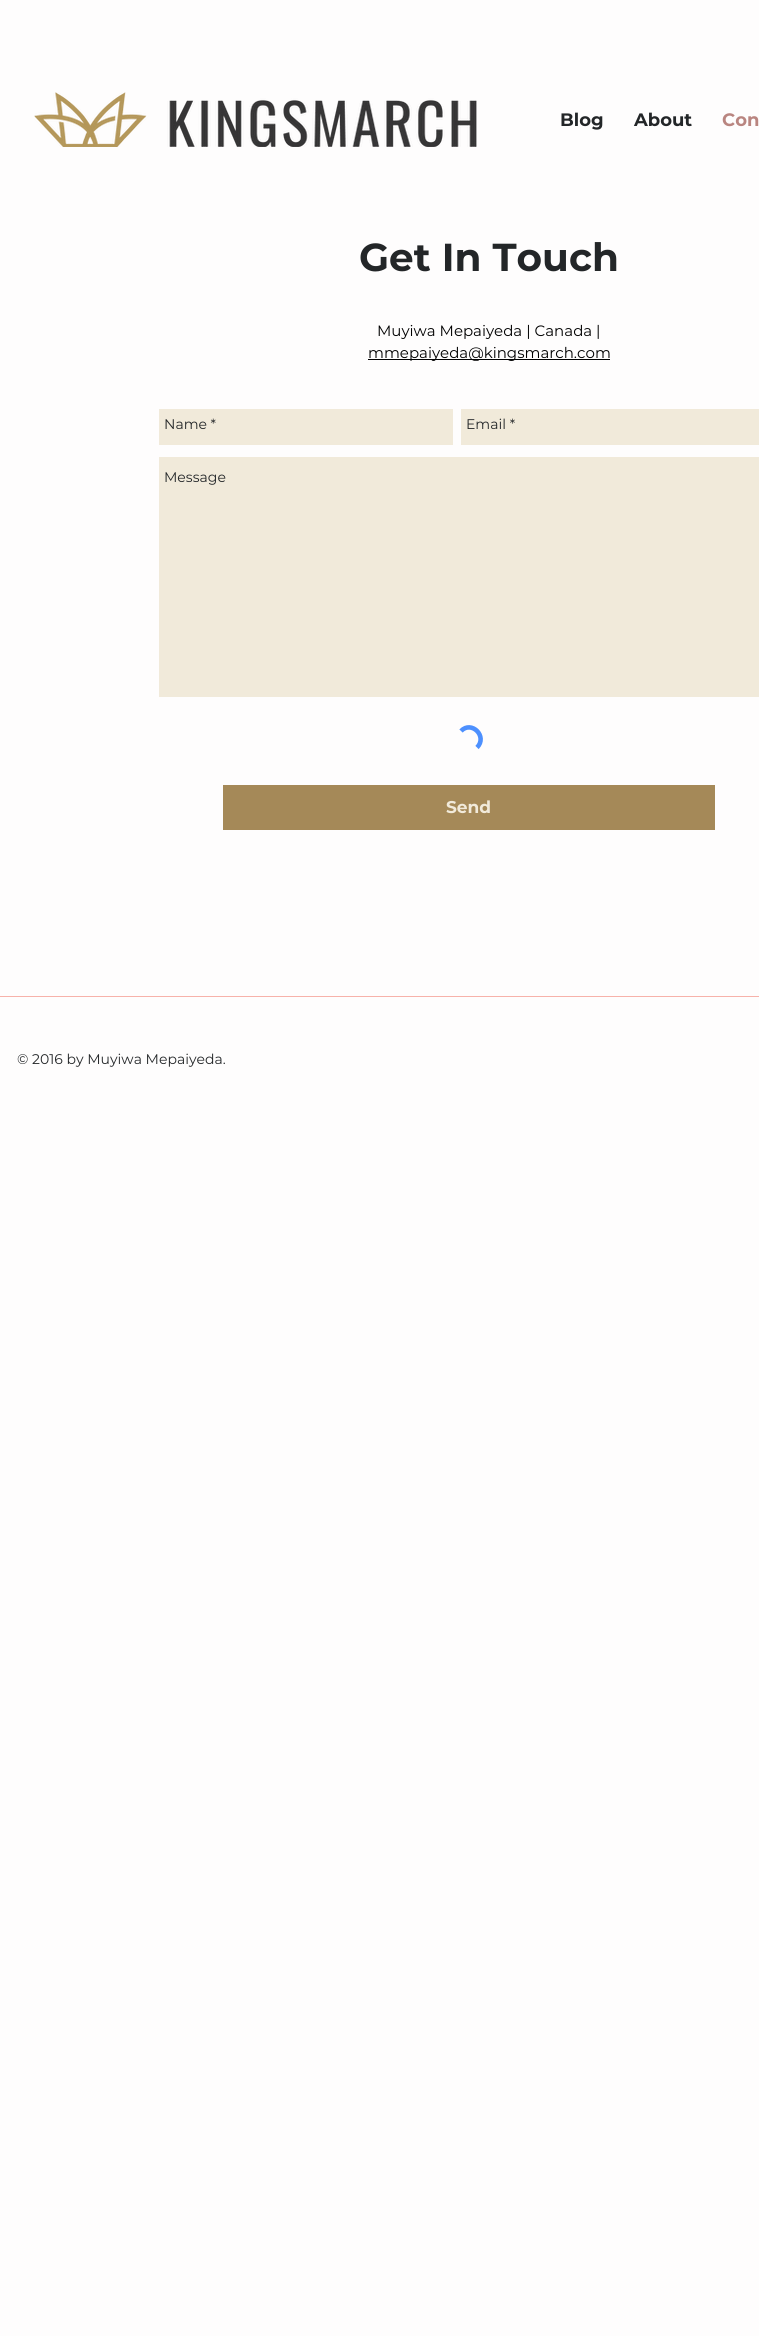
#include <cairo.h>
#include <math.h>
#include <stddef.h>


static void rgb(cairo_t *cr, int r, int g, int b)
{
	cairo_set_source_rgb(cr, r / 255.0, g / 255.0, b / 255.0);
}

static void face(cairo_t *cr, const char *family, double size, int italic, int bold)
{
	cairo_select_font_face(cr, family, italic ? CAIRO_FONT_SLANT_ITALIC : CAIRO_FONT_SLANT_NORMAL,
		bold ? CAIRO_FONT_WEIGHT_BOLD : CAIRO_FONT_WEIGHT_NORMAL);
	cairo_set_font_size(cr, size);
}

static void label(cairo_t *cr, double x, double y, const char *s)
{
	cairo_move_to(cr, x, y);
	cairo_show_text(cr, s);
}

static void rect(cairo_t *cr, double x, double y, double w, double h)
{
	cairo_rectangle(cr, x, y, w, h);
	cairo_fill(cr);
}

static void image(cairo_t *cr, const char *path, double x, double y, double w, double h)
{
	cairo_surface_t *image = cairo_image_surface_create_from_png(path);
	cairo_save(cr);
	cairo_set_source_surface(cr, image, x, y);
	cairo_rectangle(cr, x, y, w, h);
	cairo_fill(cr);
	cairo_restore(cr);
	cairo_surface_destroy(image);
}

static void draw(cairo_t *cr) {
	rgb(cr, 254, 253, 253);
	cairo_paint(cr);
	image(cr, "image0.png", 34, 92, 443, 55);
	face(cr, "Montserrat", 18, 0, 1);
	rgb(cr, 35, 38, 40);
	label(cr, 560, 126, "Blog");
	label(cr, 634, 126, "About");
	rgb(cr, 185, 133, 128);
	label(cr, 722, 126, "Con");
	face(cr, "Montserrat", 39, 0, 1);
	rgb(cr, 35, 38, 40);
	label(cr, 359, 271, "Get In Touch");
	face(cr, "Montserrat", 15, 0, 0);
	rgb(cr, 0, 0, 0);
	label(cr, 377, 336, "Muyiwa Mepaiyeda | Canada |");
	rect(cr, 368, 359, 242, 1);
	label(cr, 368, 358, "mmepaiyeda@kingsmarch.com");
	rgb(cr, 241, 234, 218);
	rect(cr, 159, 409, 294, 36);
	face(cr, "Montserrat", 14, 0, 0);
	rgb(cr, 35, 38, 40);
	label(cr, 164, 429, "Name *");
	rgb(cr, 241, 234, 218);
	rect(cr, 461, 409, 298, 36);
	rgb(cr, 35, 38, 40);
	label(cr, 466, 429, "Email *");
	rgb(cr, 241, 234, 218);
	rect(cr, 159, 457, 600, 240);
	rgb(cr, 35, 38, 40);
	label(cr, 164, 482, "Message");
	cairo_new_path(cr);
	cairo_move_to(cr, 461, 731);
	cairo_curve_to(cr, 471.5, 720, 488, 736.5, 477, 747.5);
	rgb(cr, 77, 144, 254);
	cairo_set_line_width(cr, 4.6);
	cairo_stroke(cr);
	rgb(cr, 165, 137, 88);
	rect(cr, 223, 785, 492, 45);
	face(cr, "Montserrat", 17, 0, 1);
	rgb(cr, 241, 234, 218);
	label(cr, 446, 813, "Send");
	rgb(cr, 247, 178, 170);
	rect(cr, 0, 996, 759, 1);
	face(cr, "Montserrat", 14, 0, 0);
	rgb(cr, 35, 38, 40);
	label(cr, 17, 1064, "© 2016 by Muyiwa Mepaiyeda.");
}

int main(void) {
	cairo_surface_t *surface = cairo_image_surface_create(CAIRO_FORMAT_RGB24, 759, 2336);
	cairo_t *cr = cairo_create(surface);
	cairo_font_options_t *options = cairo_font_options_create();
	cairo_font_options_set_hint_metrics(options, CAIRO_HINT_METRICS_OFF);
	cairo_font_options_set_hint_style(options, CAIRO_HINT_STYLE_NONE);
	cairo_set_font_options(cr, options);
	cairo_set_miter_limit(cr, 4);
	draw(cr);
	cairo_surface_write_to_png(surface, "render.png");
	cairo_font_options_destroy(options);
	cairo_destroy(cr);
	cairo_surface_destroy(surface);
	return 0;
}
